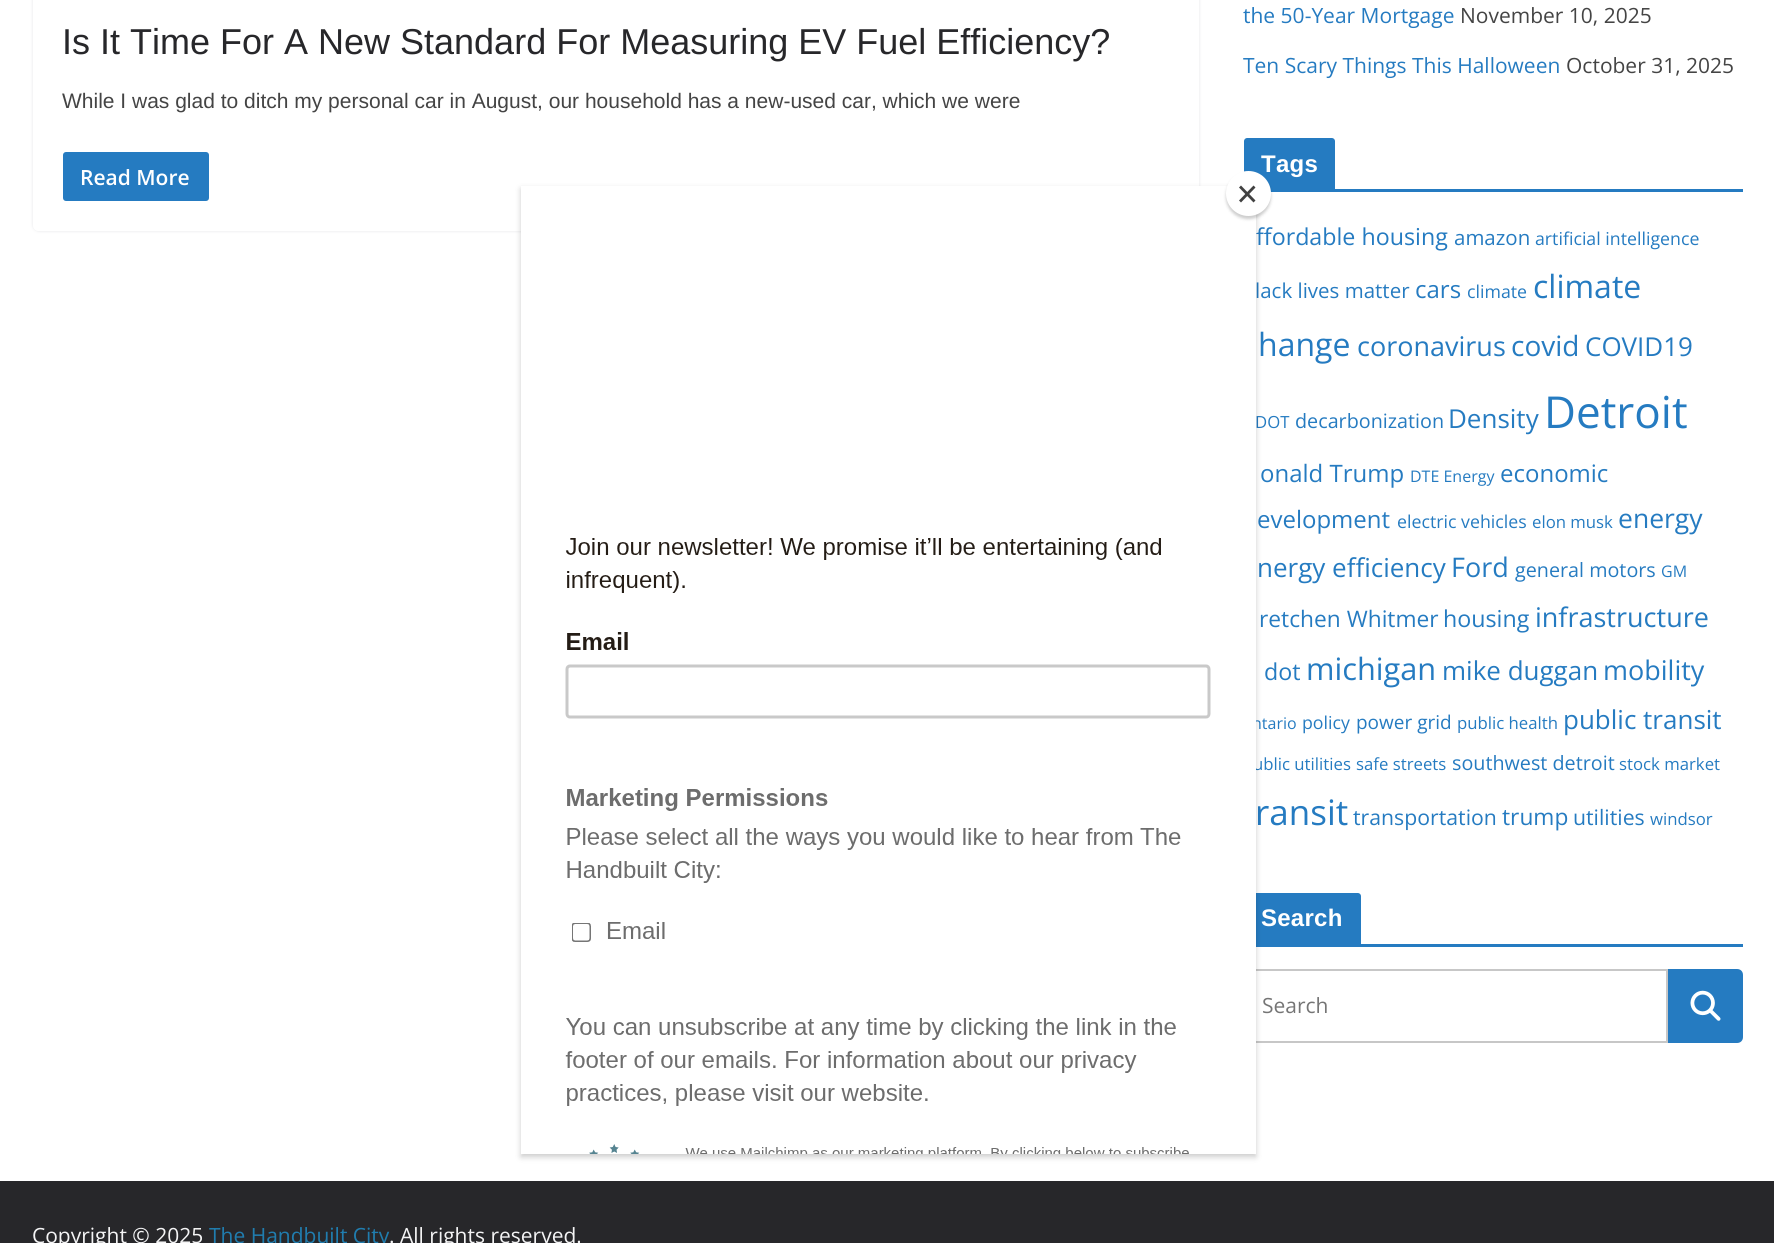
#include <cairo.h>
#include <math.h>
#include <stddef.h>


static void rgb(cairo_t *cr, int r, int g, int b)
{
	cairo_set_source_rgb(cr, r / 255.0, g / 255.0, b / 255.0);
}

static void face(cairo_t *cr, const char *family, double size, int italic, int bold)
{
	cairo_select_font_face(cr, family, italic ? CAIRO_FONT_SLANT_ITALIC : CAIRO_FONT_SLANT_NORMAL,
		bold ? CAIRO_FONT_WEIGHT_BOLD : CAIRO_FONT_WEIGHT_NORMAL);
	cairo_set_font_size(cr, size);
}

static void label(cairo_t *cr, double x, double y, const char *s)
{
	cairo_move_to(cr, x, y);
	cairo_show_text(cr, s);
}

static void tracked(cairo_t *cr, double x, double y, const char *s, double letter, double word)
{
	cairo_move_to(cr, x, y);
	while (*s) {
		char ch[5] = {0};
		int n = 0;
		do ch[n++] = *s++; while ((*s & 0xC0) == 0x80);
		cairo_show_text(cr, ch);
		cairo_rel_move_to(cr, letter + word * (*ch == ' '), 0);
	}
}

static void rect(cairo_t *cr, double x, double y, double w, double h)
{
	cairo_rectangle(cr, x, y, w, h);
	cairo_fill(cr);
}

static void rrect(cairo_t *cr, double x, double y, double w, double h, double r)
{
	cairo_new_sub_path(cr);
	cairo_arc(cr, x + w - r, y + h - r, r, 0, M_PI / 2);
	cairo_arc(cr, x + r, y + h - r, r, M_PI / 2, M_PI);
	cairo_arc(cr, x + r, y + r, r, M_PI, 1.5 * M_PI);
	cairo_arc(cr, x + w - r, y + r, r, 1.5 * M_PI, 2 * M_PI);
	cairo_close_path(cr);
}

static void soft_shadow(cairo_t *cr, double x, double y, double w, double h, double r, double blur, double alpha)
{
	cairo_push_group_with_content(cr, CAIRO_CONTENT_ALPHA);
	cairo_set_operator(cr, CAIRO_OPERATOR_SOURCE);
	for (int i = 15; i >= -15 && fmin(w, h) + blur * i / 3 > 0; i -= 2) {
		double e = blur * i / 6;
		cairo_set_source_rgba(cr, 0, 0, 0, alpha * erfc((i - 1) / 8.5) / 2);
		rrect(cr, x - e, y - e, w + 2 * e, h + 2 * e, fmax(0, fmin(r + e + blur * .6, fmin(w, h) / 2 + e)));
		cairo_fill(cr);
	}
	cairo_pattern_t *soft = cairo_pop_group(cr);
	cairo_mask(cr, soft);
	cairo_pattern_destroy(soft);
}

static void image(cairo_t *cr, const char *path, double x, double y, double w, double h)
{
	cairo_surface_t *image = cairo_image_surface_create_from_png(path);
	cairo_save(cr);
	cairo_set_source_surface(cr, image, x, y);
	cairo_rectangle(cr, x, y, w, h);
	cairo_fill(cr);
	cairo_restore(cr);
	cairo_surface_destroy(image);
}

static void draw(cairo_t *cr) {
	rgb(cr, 255, 255, 255);
	cairo_paint(cr);
	cairo_save(cr);
	cairo_set_fill_rule(cr, CAIRO_FILL_RULE_EVEN_ODD);
	cairo_new_path(cr);
	cairo_move_to(cr, 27, 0);
	cairo_line_to(cr, 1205, 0);
	cairo_line_to(cr, 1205, 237);
	cairo_line_to(cr, 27, 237);
	cairo_close_path(cr);
	cairo_move_to(cr, 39, -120);
	cairo_line_to(cr, 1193, -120);
	cairo_curve_to(cr, 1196.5, -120, 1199, -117.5, 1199, -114);
	cairo_line_to(cr, 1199, 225);
	cairo_curve_to(cr, 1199, 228.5, 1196.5, 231, 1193, 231);
	cairo_line_to(cr, 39, 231);
	cairo_curve_to(cr, 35.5, 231, 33, 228.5, 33, 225);
	cairo_line_to(cr, 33, -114);
	cairo_curve_to(cr, 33, -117.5, 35.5, -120, 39, -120);
	cairo_close_path(cr);
	cairo_clip(cr);
	rgb(cr, 228, 228, 231);
	soft_shadow(cr, 33, -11, 1166, 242, 6, 1.5, 1);
	cairo_restore(cr);
	face(cr, "Liberation Sans", 36, 0, 0);
	rgb(cr, 39, 39, 42);
	label(cr, 62, 54, "Is It Time For A New Standard For Measuring EV Fuel Efficiency?");
	face(cr, "Liberation Sans", 21, 0, 0);
	rgb(cr, 68, 68, 68);
	label(cr, 62, 108, "While I was glad to ditch my personal car in August, our household has a new-used car, which we were");
	rgb(cr, 37, 123, 193);
	rrect(cr, 63, 152, 146, 49, 3);
	cairo_fill(cr);
	face(cr, "Open Sans SemiBold", 21, 0, 0);
	rgb(cr, 255, 255, 255);
	label(cr, 80, 185, "Read More");
	face(cr, "Open Sans", 21, 0, 0);
	rgb(cr, 37, 123, 193);
	label(cr, 1243, 23, "the 50-Year Mortgage");
	rgb(cr, 68, 68, 68);
	label(cr, 1460, 23, "November 10, 2025");
	rgb(cr, 37, 123, 193);
	label(cr, 1243, 73, "Ten Scary Things This Halloween");
	rgb(cr, 68, 68, 68);
	label(cr, 1566, 73, "October 31, 2025");
	rgb(cr, 37, 123, 193);
	rect(cr, 1270, 189, 473, 3);
	cairo_new_path(cr);
	cairo_move_to(cr, 1247, 138);
	cairo_line_to(cr, 1332, 138);
	cairo_curve_to(cr, 1333.5, 138, 1335, 139.5, 1335, 141);
	cairo_line_to(cr, 1335, 189);
	cairo_line_to(cr, 1244, 189);
	cairo_line_to(cr, 1244, 141);
	cairo_curve_to(cr, 1244, 139.5, 1245.5, 138, 1247, 138);
	cairo_close_path(cr);
	cairo_fill(cr);
	face(cr, "Liberation Sans", 24, 0, 1);
	rgb(cr, 255, 255, 255);
	tracked(cr, 1261, 172, "Tags", 0.25, 0);
	face(cr, "Open Sans", 23.25, 0, 0);
	rgb(cr, 37, 123, 193);
	label(cr, 1256, 245, "ffordable housing");
	face(cr, "Open Sans", 20.5, 0, 0);
	label(cr, 1454, 245, "amazon");
	face(cr, "Open Sans", 17.75, 0, 0);
	label(cr, 1535, 245, "artificial intelligence");
	face(cr, "Open Sans", 20.5, 0, 0);
	label(cr, 1255, 298, "lack lives matter");
	face(cr, "Open Sans", 24, 0, 0);
	label(cr, 1415, 298, "cars");
	face(cr, "Open Sans", 17.75, 0, 0);
	label(cr, 1467, 298, "climate");
	face(cr, "Open Sans", 32, 0, 0);
	label(cr, 1533, 298, "climate");
	label(cr, 1258, 356, "hange");
	face(cr, "Open Sans", 27, 0, 0);
	label(cr, 1357, 356, "coronavirus");
	face(cr, "Open Sans", 28, 0, 0);
	label(cr, 1511, 356, "covid");
	face(cr, "Open Sans", 26, 0, 0);
	label(cr, 1585, 356, "COVID19");
	face(cr, "Open Sans", 16.75, 0, 0);
	label(cr, 1255, 428, "DOT");
	face(cr, "Open Sans", 19.75, 0, 0);
	label(cr, 1295, 428, "decarbonization");
	face(cr, "Open Sans", 26, 0, 0);
	label(cr, 1448, 428, "Density");
	face(cr, "Open Sans", 44, 0, 0);
	label(cr, 1544, 428, "Detroit");
	face(cr, "Open Sans", 24, 0, 0);
	label(cr, 1260, 482, "onald Trump");
	face(cr, "Open Sans", 16, 0, 0);
	label(cr, 1410, 482, "DTE Energy");
	face(cr, "Open Sans", 24, 0, 0);
	label(cr, 1500, 482, "economic");
	label(cr, 1257, 528, "evelopment");
	face(cr, "Open Sans", 17.75, 0, 0);
	label(cr, 1397, 528, "electric vehicles");
	face(cr, "Open Sans", 16.75, 0, 0);
	label(cr, 1532, 528, "elon musk");
	face(cr, "Open Sans", 26.5, 0, 0);
	label(cr, 1618, 528, "energy");
	face(cr, "Open Sans", 26, 0, 0);
	label(cr, 1257, 577, "nergy efficiency");
	face(cr, "Open Sans", 27, 0, 0);
	label(cr, 1451, 577, "Ford");
	face(cr, "Open Sans", 19.75, 0, 0);
	label(cr, 1515, 577, "general motors");
	face(cr, "Open Sans", 16, 0, 0);
	label(cr, 1661, 577, "GM");
	face(cr, "Open Sans", 22.75, 0, 0);
	label(cr, 1259, 627, "retchen Whitmer");
	face(cr, "Open Sans", 23.25, 0, 0);
	label(cr, 1443, 627, "housing");
	face(cr, "Open Sans", 27, 0, 0);
	label(cr, 1535, 627, "infrastructure");
	face(cr, "Open Sans", 23.25, 0, 0);
	label(cr, 1264, 680, "dot");
	face(cr, "Open Sans", 30.75, 0, 0);
	label(cr, 1306, 680, "michigan");
	face(cr, "Open Sans", 26, 0, 0);
	label(cr, 1442, 680, "mike duggan");
	face(cr, "Open Sans", 27, 0, 0);
	label(cr, 1603, 680, "mobility");
	face(cr, "Open Sans", 16, 0, 0);
	label(cr, 1252, 729, "ntario");
	face(cr, "Open Sans", 17.75, 0, 0);
	label(cr, 1302, 729, "policy");
	face(cr, "Open Sans", 19, 0, 0);
	label(cr, 1356, 729, "power grid");
	face(cr, "Open Sans", 16.75, 0, 0);
	label(cr, 1457, 729, "public health");
	face(cr, "Open Sans", 26, 0, 0);
	label(cr, 1563, 729, "public transit");
	face(cr, "Open Sans", 16.75, 0, 0);
	label(cr, 1253, 770, "ublic utilities");
	label(cr, 1356, 770, "safe streets");
	face(cr, "Open Sans", 19.75, 0, 0);
	label(cr, 1452, 770, "southwest detroit");
	face(cr, "Open Sans", 16.75, 0, 0);
	label(cr, 1619, 770, "stock market");
	face(cr, "Open Sans", 35, 0, 0);
	label(cr, 1255, 825, "ransit");
	face(cr, "Open Sans", 21.25, 0, 0);
	label(cr, 1353, 825, "transportation");
	face(cr, "Open Sans", 22.75, 0, 0);
	label(cr, 1502, 825, "trump");
	face(cr, "Open Sans", 21.25, 0, 0);
	label(cr, 1573, 825, "utilities");
	face(cr, "Open Sans", 16.75, 0, 0);
	label(cr, 1650, 825, "windsor");
	rect(cr, 1256, 944, 487, 3);
	cairo_new_path(cr);
	cairo_move_to(cr, 1247, 893);
	cairo_line_to(cr, 1358, 893);
	cairo_curve_to(cr, 1359.5, 893, 1361, 894.5, 1361, 896);
	cairo_line_to(cr, 1361, 944);
	cairo_line_to(cr, 1244, 944);
	cairo_line_to(cr, 1244, 896);
	cairo_curve_to(cr, 1244, 894.5, 1245.5, 893, 1247, 893);
	cairo_close_path(cr);
	cairo_fill(cr);
	face(cr, "Liberation Sans", 24, 0, 1);
	rgb(cr, 255, 255, 255);
	tracked(cr, 1261, 926, "Search", 0.25, 0);
	cairo_rectangle(cr, 1245, 970, 422, 72);
	rgb(cr, 199, 199, 199);
	cairo_stroke(cr);
	face(cr, "Open Sans", 21, 0, 0);
	rgb(cr, 117, 117, 117);
	label(cr, 1262, 1013, "Search");
	rgb(cr, 37, 123, 193);
	cairo_new_path(cr);
	cairo_move_to(cr, 1669, 970);
	cairo_line_to(cr, 1737, 970);
	cairo_curve_to(cr, 1740, 970, 1742, 972, 1742, 975);
	cairo_line_to(cr, 1742, 1037);
	cairo_curve_to(cr, 1742, 1040, 1740, 1042, 1737, 1042);
	cairo_line_to(cr, 1669, 1042);
	cairo_close_path(cr);
	cairo_fill_preserve(cr);
	cairo_stroke(cr);
	image(cr, "image0.png", 1690, 990, 31, 31);
	rgb(cr, 39, 39, 42);
	rect(cr, 0, 1181, 1774, 62);
	rgb(cr, 244, 244, 245);
	label(cr, 32, 1243, "Copyright © 2025");
	rgb(cr, 32, 125, 175);
	label(cr, 209, 1243, "The Handbuilt City");
	rgb(cr, 244, 244, 245);
	label(cr, 389, 1243, ". All rights reserved.");
	rgb(cr, 0, 0, 0);
	soft_shadow(cr, 521, 189, 735, 968, 0, 3, 0.2);
	image(cr, "image1.png", 521, 186, 735, 968);
	soft_shadow(cr, 1226, 174, 45, 45, 22.5, 1.5, 0.2);
	rgb(cr, 255, 255, 255);
	cairo_arc(cr, 1248.5, 193.5, 22.5, 0, 2 * M_PI);
	cairo_fill(cr);
	rgb(cr, 65, 65, 65);
	cairo_new_path(cr);
	cairo_move_to(cr, 1253.5, 185.5);
	cairo_line_to(cr, 1255.5, 187.5);
	cairo_line_to(cr, 1241, 202.5);
	cairo_line_to(cr, 1239, 200.5);
	cairo_close_path(cr);
	cairo_fill(cr);
	cairo_new_path(cr);
	cairo_move_to(cr, 1239, 187.5);
	cairo_line_to(cr, 1241, 185.5);
	cairo_line_to(cr, 1255.5, 200.5);
	cairo_line_to(cr, 1253.5, 202.5);
	cairo_close_path(cr);
	cairo_fill(cr);
}

int main(void) {
	cairo_surface_t *surface = cairo_image_surface_create(CAIRO_FORMAT_RGB24, 1774, 1243);
	cairo_t *cr = cairo_create(surface);
	cairo_font_options_t *options = cairo_font_options_create();
	cairo_font_options_set_hint_metrics(options, CAIRO_HINT_METRICS_OFF);
	cairo_font_options_set_hint_style(options, CAIRO_HINT_STYLE_NONE);
	cairo_set_font_options(cr, options);
	cairo_set_miter_limit(cr, 4);
	draw(cr);
	cairo_surface_write_to_png(surface, "render.png");
	cairo_font_options_destroy(options);
	cairo_destroy(cr);
	cairo_surface_destroy(surface);
	return 0;
}
